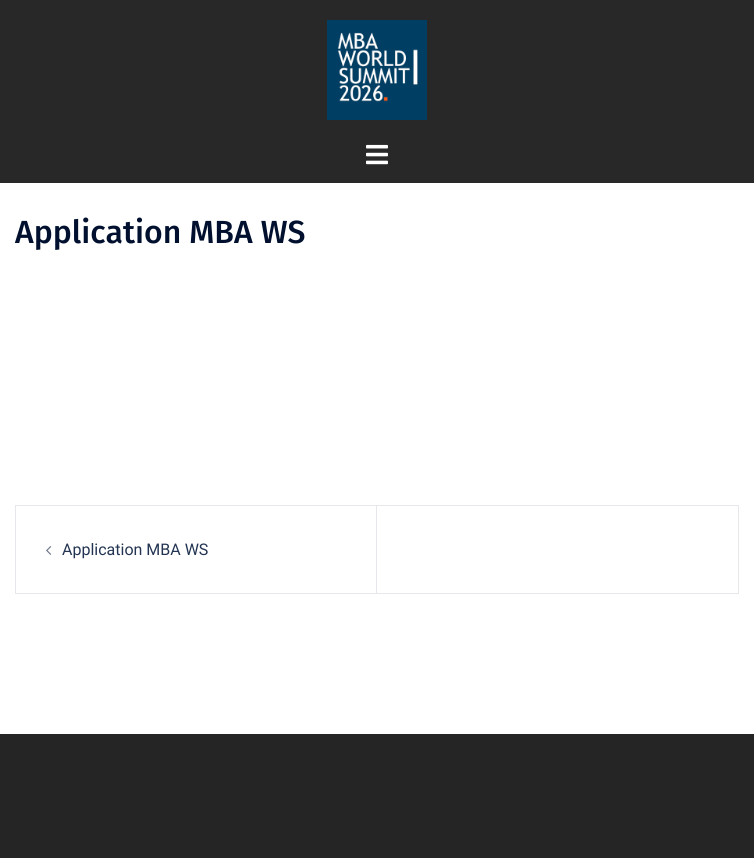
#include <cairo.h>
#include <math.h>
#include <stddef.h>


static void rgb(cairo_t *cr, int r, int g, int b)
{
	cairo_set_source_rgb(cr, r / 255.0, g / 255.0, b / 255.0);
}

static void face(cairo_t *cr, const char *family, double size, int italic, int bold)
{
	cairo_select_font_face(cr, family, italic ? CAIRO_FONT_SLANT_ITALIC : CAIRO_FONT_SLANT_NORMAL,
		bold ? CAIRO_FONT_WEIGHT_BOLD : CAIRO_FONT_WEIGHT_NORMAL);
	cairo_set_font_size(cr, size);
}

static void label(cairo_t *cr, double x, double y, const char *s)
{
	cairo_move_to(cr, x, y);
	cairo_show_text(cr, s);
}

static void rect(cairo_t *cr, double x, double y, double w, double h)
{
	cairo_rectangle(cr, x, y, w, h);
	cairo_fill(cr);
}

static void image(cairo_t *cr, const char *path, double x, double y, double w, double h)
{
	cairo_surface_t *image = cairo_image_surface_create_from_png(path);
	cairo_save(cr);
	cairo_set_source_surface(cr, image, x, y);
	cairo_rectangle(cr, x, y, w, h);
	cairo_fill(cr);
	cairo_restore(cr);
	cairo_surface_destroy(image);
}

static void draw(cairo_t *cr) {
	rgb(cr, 255, 255, 255);
	cairo_paint(cr);
	rgb(cr, 40, 40, 40);
	rect(cr, 0, 0, 754, 183);
	image(cr, "image0.png", 327, 20, 100, 100);
	image(cr, "image1.png", 366, 144, 22, 21);
	face(cr, "Fira Sans Medium", 32, 0, 0);
	rgb(cr, 0, 16, 46);
	label(cr, 15, 243, "Application MBA WS");
	cairo_rectangle(cr, 15.5, 505.5, 723, 88);
	rgb(cr, 230, 231, 234);
	cairo_set_line_width(cr, 1);
	cairo_stroke(cr);
	rect(cr, 376, 506, 1, 87);
	image(cr, "image2.png", 46, 546, 6, 9);
	face(cr, "Roboto", 16, 0, 0);
	rgb(cr, 35, 52, 82);
	label(cr, 62, 555, "Application MBA WS");
	rgb(cr, 37, 37, 37);
	rect(cr, 0, 734, 754, 124);
}

int main(void) {
	cairo_surface_t *surface = cairo_image_surface_create(CAIRO_FORMAT_RGB24, 754, 858);
	cairo_t *cr = cairo_create(surface);
	cairo_font_options_t *options = cairo_font_options_create();
	cairo_font_options_set_hint_metrics(options, CAIRO_HINT_METRICS_OFF);
	cairo_font_options_set_hint_style(options, CAIRO_HINT_STYLE_NONE);
	cairo_set_font_options(cr, options);
	cairo_set_miter_limit(cr, 4);
	draw(cr);
	cairo_surface_write_to_png(surface, "render.png");
	cairo_font_options_destroy(options);
	cairo_destroy(cr);
	cairo_surface_destroy(surface);
	return 0;
}
